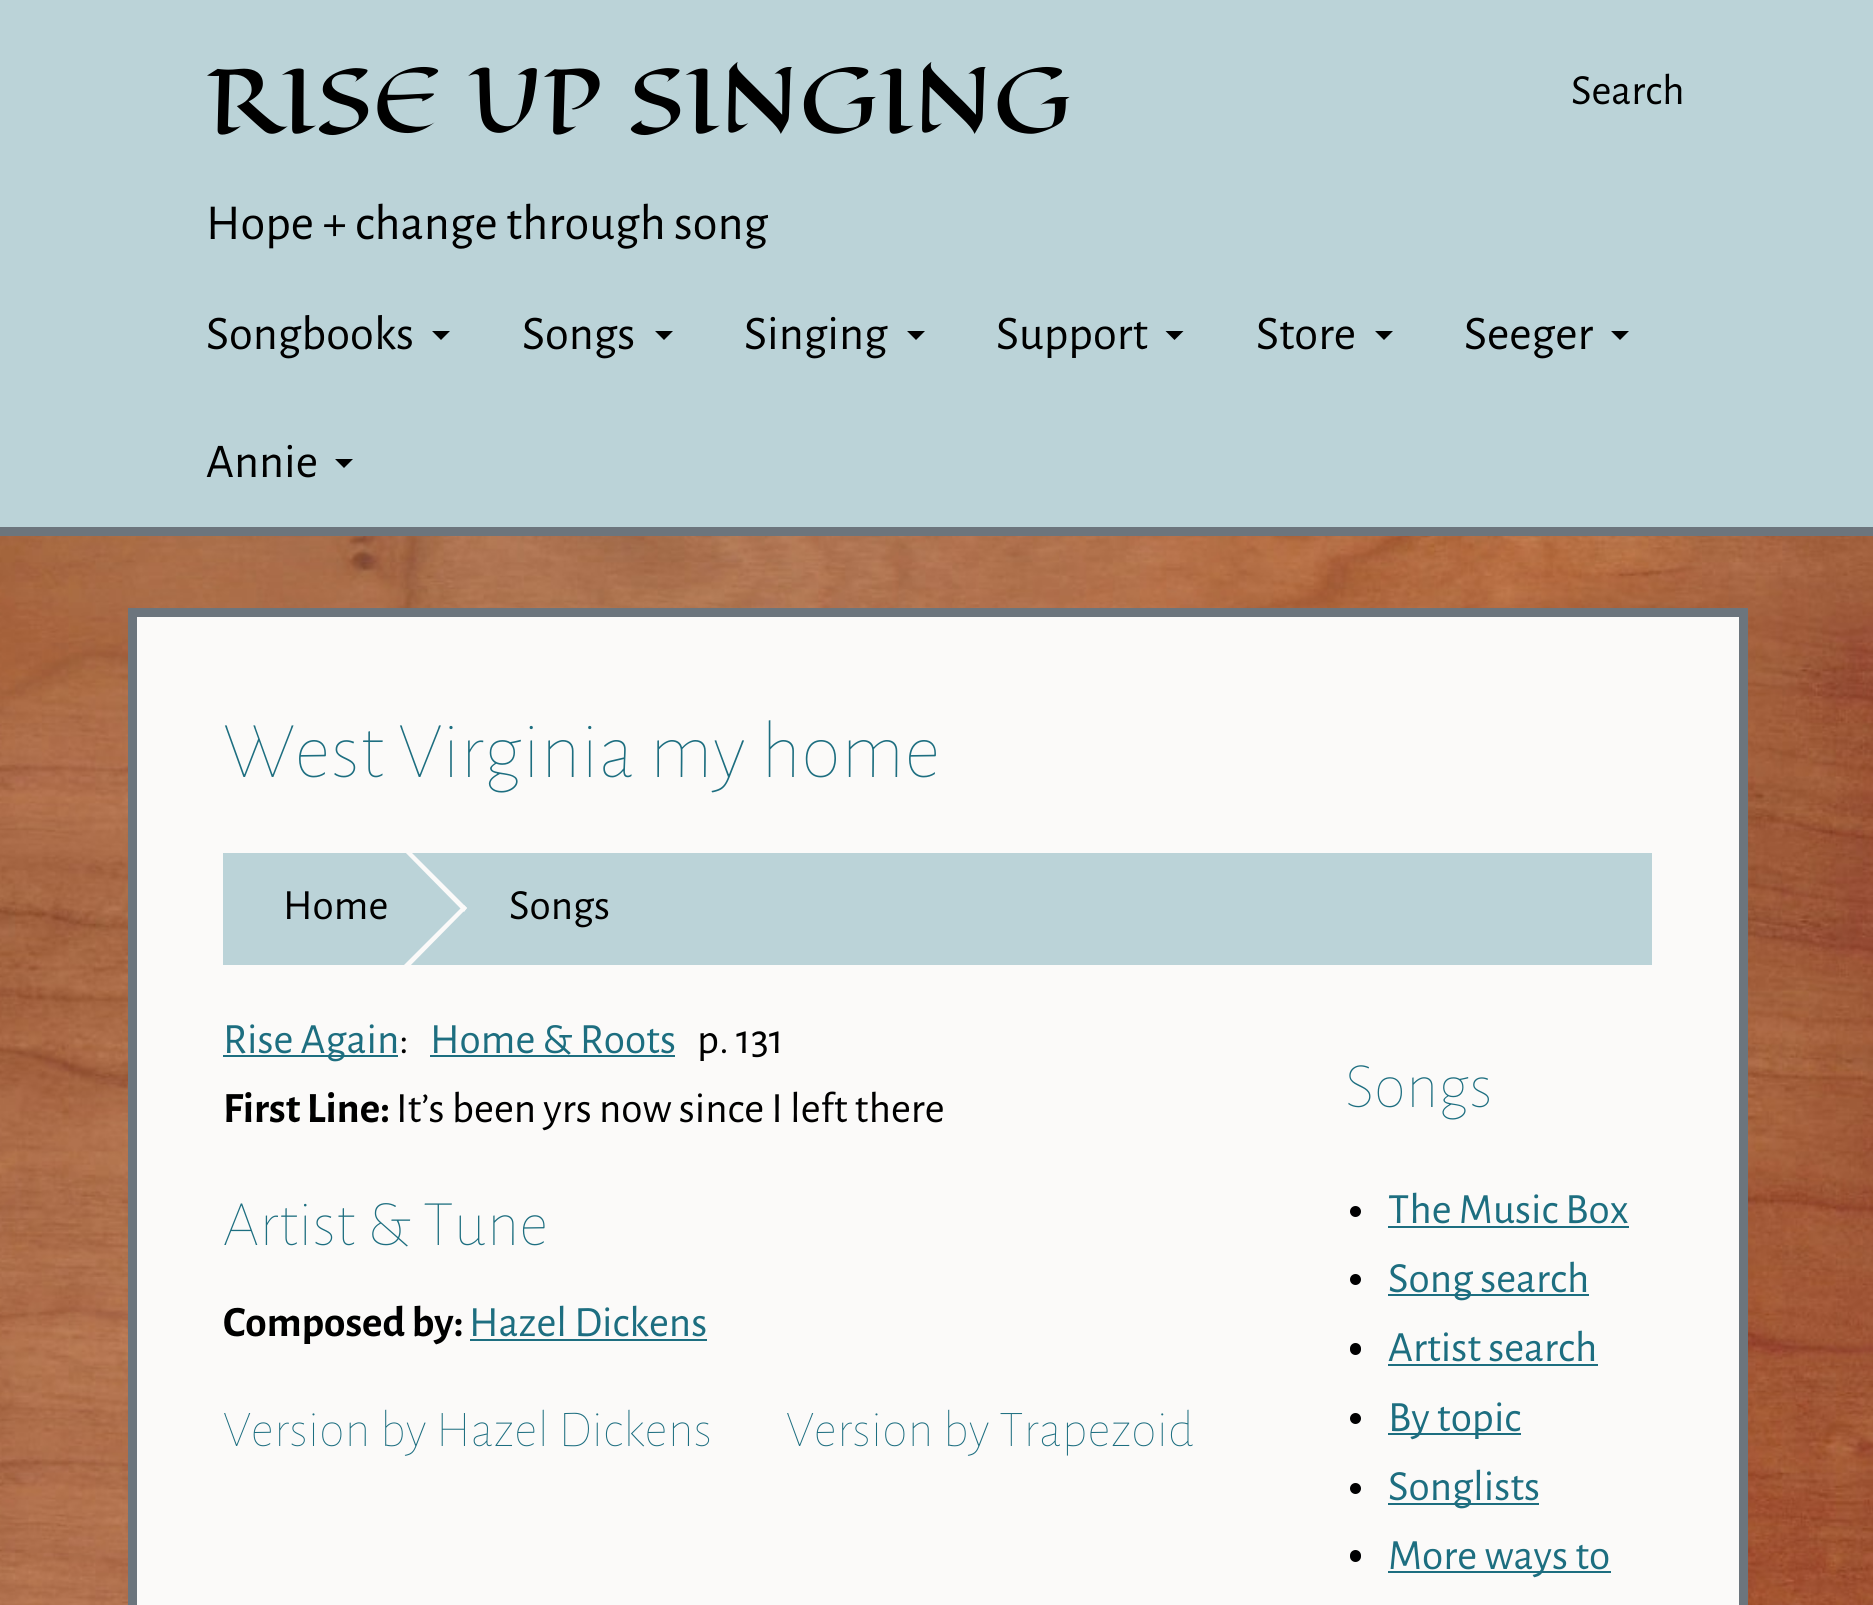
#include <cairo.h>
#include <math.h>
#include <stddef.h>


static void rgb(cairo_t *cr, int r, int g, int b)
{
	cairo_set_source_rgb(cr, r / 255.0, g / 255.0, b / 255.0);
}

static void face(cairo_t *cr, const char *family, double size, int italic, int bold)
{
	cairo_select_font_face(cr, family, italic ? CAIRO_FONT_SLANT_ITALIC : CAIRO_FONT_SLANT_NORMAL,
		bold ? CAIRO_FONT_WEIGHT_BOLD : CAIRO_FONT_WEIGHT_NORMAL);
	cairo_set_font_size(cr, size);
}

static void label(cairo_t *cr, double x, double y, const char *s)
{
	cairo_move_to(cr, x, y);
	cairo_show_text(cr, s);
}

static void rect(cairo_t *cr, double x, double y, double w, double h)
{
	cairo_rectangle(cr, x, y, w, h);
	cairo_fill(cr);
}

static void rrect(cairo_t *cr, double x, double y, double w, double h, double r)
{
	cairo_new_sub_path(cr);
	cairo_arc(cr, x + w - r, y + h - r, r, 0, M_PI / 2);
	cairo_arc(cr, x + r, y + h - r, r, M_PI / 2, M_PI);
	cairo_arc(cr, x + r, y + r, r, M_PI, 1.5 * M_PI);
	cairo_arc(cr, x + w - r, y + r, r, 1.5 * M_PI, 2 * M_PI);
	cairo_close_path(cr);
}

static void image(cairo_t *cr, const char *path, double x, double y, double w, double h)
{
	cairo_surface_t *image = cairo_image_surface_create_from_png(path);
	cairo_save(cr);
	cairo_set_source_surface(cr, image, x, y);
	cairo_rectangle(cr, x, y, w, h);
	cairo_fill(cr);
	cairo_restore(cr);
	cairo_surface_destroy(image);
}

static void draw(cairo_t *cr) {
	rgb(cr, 255, 255, 255);
	cairo_paint(cr);
	image(cr, "image0.png", 0, 536, 1873, 1069);
	rgb(cr, 187, 211, 216);
	rect(cr, 0, 0, 1873, 527);
	rgb(cr, 108, 117, 125);
	rect(cr, 0, 527, 1873, 9);
	face(cr, "Eagle Lake", 86.4, 0, 0);
	rgb(cr, 0, 0, 0);
	label(cr, 206, 131, "RISE UP SINGING");
	face(cr, "Alegreya Sans", 50.4, 0, 0);
	label(cr, 206, 239, "Hope + change through song");
	face(cr, "Alegreya Sans", 43.25, 0, 0);
	label(cr, 1571, 104, "Search");
	face(cr, "Alegreya Sans", 48.5, 0, 0);
	label(cr, 206, 349, "Songbooks");
	cairo_new_path(cr);
	cairo_move_to(cr, 432, 331);
	cairo_line_to(cr, 450, 331);
	cairo_line_to(cr, 441, 340);
	cairo_close_path(cr);
	cairo_fill(cr);
	label(cr, 522, 349, "Songs");
	cairo_new_path(cr);
	cairo_move_to(cr, 655, 331);
	cairo_line_to(cr, 673, 331);
	cairo_line_to(cr, 664, 340);
	cairo_close_path(cr);
	cairo_fill(cr);
	label(cr, 744, 349, "Singing");
	cairo_new_path(cr);
	cairo_move_to(cr, 907, 331);
	cairo_line_to(cr, 925, 331);
	cairo_line_to(cr, 916, 340);
	cairo_close_path(cr);
	cairo_fill(cr);
	label(cr, 996, 349, "Support");
	cairo_new_path(cr);
	cairo_move_to(cr, 1165.5, 331);
	cairo_line_to(cr, 1183.5, 331);
	cairo_line_to(cr, 1174.5, 340);
	cairo_close_path(cr);
	cairo_fill(cr);
	label(cr, 1256, 349, "Store");
	cairo_new_path(cr);
	cairo_move_to(cr, 1375, 331);
	cairo_line_to(cr, 1393, 331);
	cairo_line_to(cr, 1384, 340);
	cairo_close_path(cr);
	cairo_fill(cr);
	label(cr, 1464, 349, "Seeger");
	cairo_new_path(cr);
	cairo_move_to(cr, 1611, 331);
	cairo_line_to(cr, 1629, 331);
	cairo_line_to(cr, 1620, 340);
	cairo_close_path(cr);
	cairo_fill(cr);
	label(cr, 206, 477, "Annie");
	cairo_new_path(cr);
	cairo_move_to(cr, 335, 459);
	cairo_line_to(cr, 353, 459);
	cairo_line_to(cr, 344, 468);
	cairo_close_path(cr);
	cairo_fill(cr);
	rgb(cr, 251, 250, 249);
	cairo_rectangle(cr, 132.5, 612.5, 1611, 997);
	cairo_fill_preserve(cr);
	rgb(cr, 108, 117, 125);
	cairo_set_line_width(cr, 9);
	cairo_stroke(cr);
	face(cr, "Alegreya Sans ExtraLight", 81, 0, 0);
	rgb(cr, 29, 110, 128);
	label(cr, 223, 777, "West Virginia my home");
	rgb(cr, 187, 211, 216);
	rect(cr, 223, 853, 1429, 112);
	face(cr, "Alegreya Sans", 43.25, 0, 0);
	rgb(cr, 0, 0, 0);
	label(cr, 283, 919, "Home");
	cairo_save(cr);
	cairo_rectangle(cr, 223, 853, 1429, 112);
	cairo_clip(cr);
	rgb(cr, 251, 250, 249);
	cairo_new_path(cr);
	cairo_move_to(cr, 403, 844);
	cairo_line_to(cr, 467, 908);
	cairo_line_to(cr, 464, 912);
	cairo_line_to(cr, 400, 847);
	cairo_close_path(cr);
	cairo_fill(cr);
	cairo_new_path(cr);
	cairo_move_to(cr, 464, 905);
	cairo_line_to(cr, 467, 908);
	cairo_line_to(cr, 403, 973);
	cairo_line_to(cr, 400, 969);
	cairo_close_path(cr);
	cairo_fill(cr);
	cairo_restore(cr);
	label(cr, 509, 919, "Songs");
	rgb(cr, 29, 110, 128);
	rect(cr, 223, 1055, 175, 2);
	label(cr, 223, 1053, "Rise Again");
	rgb(cr, 0, 0, 0);
	label(cr, 399, 1053, ":");
	rgb(cr, 29, 110, 128);
	label(cr, 430, 1053, "Home & Roots");
	rect(cr, 430, 1055, 245, 2);
	rgb(cr, 0, 0, 0);
	label(cr, 697, 1053, "p. 131");
	face(cr, "Alegreya Sans", 43.25, 0, 1);
	label(cr, 223, 1122, "First Line:");
	face(cr, "Alegreya Sans", 43.25, 0, 0);
	label(cr, 396, 1122, "It’s been yrs now since I left there");
	face(cr, "Alegreya Sans ExtraLight", 65.25, 0, 0);
	rgb(cr, 29, 110, 128);
	label(cr, 223, 1245, "Artist & Tune");
	face(cr, "Alegreya Sans", 43.25, 0, 1);
	rgb(cr, 0, 0, 0);
	label(cr, 223, 1336, "Composed by:");
	face(cr, "Alegreya Sans", 43.25, 0, 0);
	rgb(cr, 29, 110, 128);
	label(cr, 469, 1336, "Hazel Dickens");
	rect(cr, 470, 1339, 237, 2);
	face(cr, "Alegreya Sans ExtraLight", 51.75, 0, 0);
	label(cr, 223, 1446, "Version by Hazel Dickens");
	label(cr, 786, 1446, "Version by Trapezoid");
	face(cr, "Alegreya Sans ExtraLight", 65.25, 0, 0);
	label(cr, 1345, 1107, "Songs");
	rgb(cr, 0, 0, 1);
	cairo_new_path(cr);
	cairo_arc(cr, 1355.5, 1211.5, 5.5, 0, 2 * M_PI);
	cairo_fill(cr);
	face(cr, "Alegreya Sans", 43.25, 0, 0);
	rgb(cr, 29, 110, 128);
	label(cr, 1388, 1223, "The Music Box");
	rect(cr, 1388, 1226, 241, 2);
	rgb(cr, 0, 0, 1);
	cairo_new_path(cr);
	cairo_arc(cr, 1355.5, 1279.5, 5.5, 0, 2 * M_PI);
	cairo_fill(cr);
	rgb(cr, 29, 110, 128);
	rect(cr, 1388, 1294, 201, 2);
	label(cr, 1388, 1292, "Song search");
	rgb(cr, 0, 0, 1);
	rrect(cr, 1350, 1343, 11, 12, 5.5);
	cairo_fill(cr);
	rgb(cr, 29, 110, 128);
	label(cr, 1388, 1361, "Artist search");
	rect(cr, 1388, 1364, 210, 2);
	rgb(cr, 0, 0, 1);
	cairo_new_path(cr);
	cairo_arc(cr, 1355.5, 1418.5, 5.5, 0, 2 * M_PI);
	cairo_fill(cr);
	rgb(cr, 29, 110, 128);
	rect(cr, 1388, 1433, 133, 2);
	label(cr, 1388, 1431, "By topic");
	rgb(cr, 0, 0, 1);
	cairo_new_path(cr);
	cairo_arc(cr, 1355.5, 1488.5, 5.5, 0, 2 * M_PI);
	cairo_fill(cr);
	rgb(cr, 29, 110, 128);
	rect(cr, 1388, 1503, 151, 2);
	label(cr, 1388, 1500, "Songlists");
	rgb(cr, 0, 0, 1);
	rrect(cr, 1350, 1550, 11, 12, 5.5);
	cairo_fill(cr);
	rgb(cr, 29, 110, 128);
	rect(cr, 1388, 1571, 223, 2);
	label(cr, 1388, 1569, "More ways to");
}

int main(void) {
	cairo_surface_t *surface = cairo_image_surface_create(CAIRO_FORMAT_RGB24, 1873, 1605);
	cairo_t *cr = cairo_create(surface);
	cairo_font_options_t *options = cairo_font_options_create();
	cairo_font_options_set_hint_metrics(options, CAIRO_HINT_METRICS_OFF);
	cairo_font_options_set_hint_style(options, CAIRO_HINT_STYLE_NONE);
	cairo_set_font_options(cr, options);
	cairo_set_miter_limit(cr, 4);
	draw(cr);
	cairo_surface_write_to_png(surface, "render.png");
	cairo_font_options_destroy(options);
	cairo_destroy(cr);
	cairo_surface_destroy(surface);
	return 0;
}
